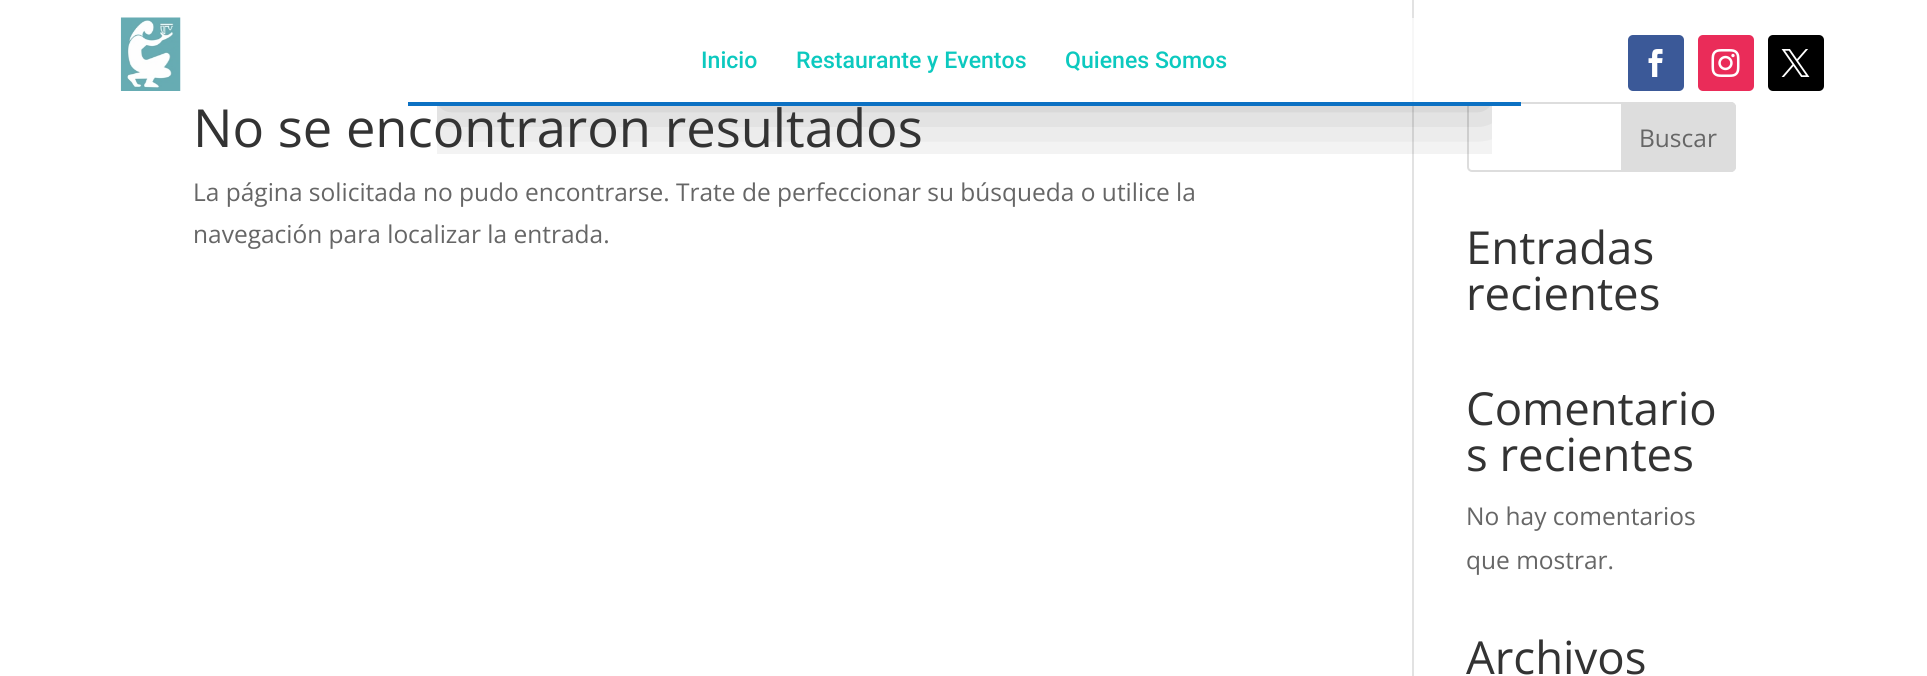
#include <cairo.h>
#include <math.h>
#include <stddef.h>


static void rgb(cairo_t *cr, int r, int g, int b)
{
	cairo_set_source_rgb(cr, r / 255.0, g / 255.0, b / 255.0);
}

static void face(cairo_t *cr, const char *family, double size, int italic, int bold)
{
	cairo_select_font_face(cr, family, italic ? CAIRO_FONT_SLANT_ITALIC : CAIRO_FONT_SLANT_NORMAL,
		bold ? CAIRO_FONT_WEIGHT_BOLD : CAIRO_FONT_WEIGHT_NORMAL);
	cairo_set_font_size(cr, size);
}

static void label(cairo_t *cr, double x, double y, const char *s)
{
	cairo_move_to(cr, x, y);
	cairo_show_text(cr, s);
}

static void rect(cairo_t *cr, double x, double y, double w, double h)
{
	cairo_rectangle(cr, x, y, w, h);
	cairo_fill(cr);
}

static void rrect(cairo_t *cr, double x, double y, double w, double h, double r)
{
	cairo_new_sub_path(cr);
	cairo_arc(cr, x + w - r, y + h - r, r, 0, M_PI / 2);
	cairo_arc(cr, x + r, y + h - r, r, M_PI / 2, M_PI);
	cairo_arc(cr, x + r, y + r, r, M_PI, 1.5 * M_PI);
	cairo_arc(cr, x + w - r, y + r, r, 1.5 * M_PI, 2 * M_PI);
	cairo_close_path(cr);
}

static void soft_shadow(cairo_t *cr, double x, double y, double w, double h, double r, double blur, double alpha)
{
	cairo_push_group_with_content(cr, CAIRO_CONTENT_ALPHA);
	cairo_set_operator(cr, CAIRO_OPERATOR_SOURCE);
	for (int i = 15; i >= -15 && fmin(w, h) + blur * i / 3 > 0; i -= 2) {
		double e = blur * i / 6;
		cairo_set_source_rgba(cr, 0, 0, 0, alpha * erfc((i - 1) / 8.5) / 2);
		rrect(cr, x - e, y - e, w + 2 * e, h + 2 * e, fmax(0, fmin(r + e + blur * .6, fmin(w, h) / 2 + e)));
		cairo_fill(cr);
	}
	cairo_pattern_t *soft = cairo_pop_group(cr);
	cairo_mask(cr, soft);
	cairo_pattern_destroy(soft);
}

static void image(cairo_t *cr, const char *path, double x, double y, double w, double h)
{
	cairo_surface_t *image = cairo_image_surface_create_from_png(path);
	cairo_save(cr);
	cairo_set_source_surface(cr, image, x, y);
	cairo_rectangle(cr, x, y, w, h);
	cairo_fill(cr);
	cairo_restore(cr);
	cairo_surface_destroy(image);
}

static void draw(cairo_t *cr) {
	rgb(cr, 255, 255, 255);
	cairo_paint(cr);
	image(cr, "image0.png", 120, 17, 61, 74);
	rgb(cr, 226, 226, 226);
	rect(cr, 1412, 0, 2, 676);
	rgb(cr, 247, 247, 247);
	rect(cr, 1412, 18, 2, 84);
	rrect(cr, 1468, 103, 267, 68, 4);
	rgb(cr, 221, 221, 221);
	cairo_stroke(cr);
	cairo_save(cr);
	cairo_rectangle(cr, 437, 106, 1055, 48);
	cairo_clip(cr);
	rgb(cr, 0, 0, 0);
	soft_shadow(cr, 443, 88, 1043, 17, 0, 44, 0.3);
	cairo_restore(cr);
	rgb(cr, 12, 113, 195);
	rect(cr, 408, 102, 1113, 4);
	face(cr, "Roboto Medium", 23.1, 0, 0);
	rgb(cr, 12, 201, 191);
	label(cr, 701, 68, "Inicio");
	label(cr, 796, 68, "Restaurante y Eventos");
	label(cr, 1065, 68, "Quienes Somos");
	rgb(cr, 59, 89, 152);
	rrect(cr, 1628, 35, 56, 56, 5);
	cairo_fill(cr);
	image(cr, "image1.png", 1648, 49, 15, 28);
	rgb(cr, 234, 44, 89);
	rrect(cr, 1698, 35, 56, 56, 5);
	cairo_fill(cr);
	image(cr, "image2.png", 1711, 49, 29, 28);
	rgb(cr, 0, 0, 0);
	rrect(cr, 1768, 35, 56, 56, 5);
	cairo_fill(cr);
	image(cr, "image3.png", 1781, 49, 29, 28);
	face(cr, "Open Sans", 52.5, 0, 0);
	rgb(cr, 51, 51, 51);
	label(cr, 193, 147, "No se encontraron resultados");
	face(cr, "Open Sans", 24.5, 0, 0);
	rgb(cr, 102, 102, 102);
	label(cr, 193, 201, "La página solicitada no pudo encontrarse. Trate de perfeccionar su búsqueda o utilice la");
	label(cr, 193, 243, "navegación para localizar la entrada.");
	rgb(cr, 221, 221, 221);
	cairo_new_path(cr);
	cairo_move_to(cr, 1622, 103);
	cairo_line_to(cr, 1731, 103);
	cairo_curve_to(cr, 1733, 103, 1735, 105, 1735, 107);
	cairo_line_to(cr, 1735, 167);
	cairo_curve_to(cr, 1735, 169, 1733, 171, 1731, 171);
	cairo_line_to(cr, 1622, 171);
	cairo_close_path(cr);
	cairo_fill_preserve(cr);
	cairo_stroke(cr);
	rgb(cr, 102, 102, 102);
	label(cr, 1639, 147, "Buscar");
	face(cr, "Open Sans", 45.5, 0, 0);
	rgb(cr, 51, 51, 51);
	label(cr, 1466, 264, "Entradas");
	label(cr, 1466, 310, "recientes");
	label(cr, 1466, 425, "Comentario");
	label(cr, 1466, 471, "s recientes");
	face(cr, "Open Sans", 24.5, 0, 0);
	rgb(cr, 102, 102, 102);
	label(cr, 1466, 525, "No hay comentarios");
	label(cr, 1466, 569, "que mostrar.");
	face(cr, "Open Sans", 45.5, 0, 0);
	rgb(cr, 51, 51, 51);
	label(cr, 1466, 674, "Archivos");
}

int main(void) {
	cairo_surface_t *surface = cairo_image_surface_create(CAIRO_FORMAT_RGB24, 1927, 676);
	cairo_t *cr = cairo_create(surface);
	cairo_font_options_t *options = cairo_font_options_create();
	cairo_font_options_set_hint_metrics(options, CAIRO_HINT_METRICS_OFF);
	cairo_font_options_set_hint_style(options, CAIRO_HINT_STYLE_NONE);
	cairo_set_font_options(cr, options);
	cairo_set_miter_limit(cr, 4);
	draw(cr);
	cairo_surface_write_to_png(surface, "render.png");
	cairo_font_options_destroy(options);
	cairo_destroy(cr);
	cairo_surface_destroy(surface);
	return 0;
}
